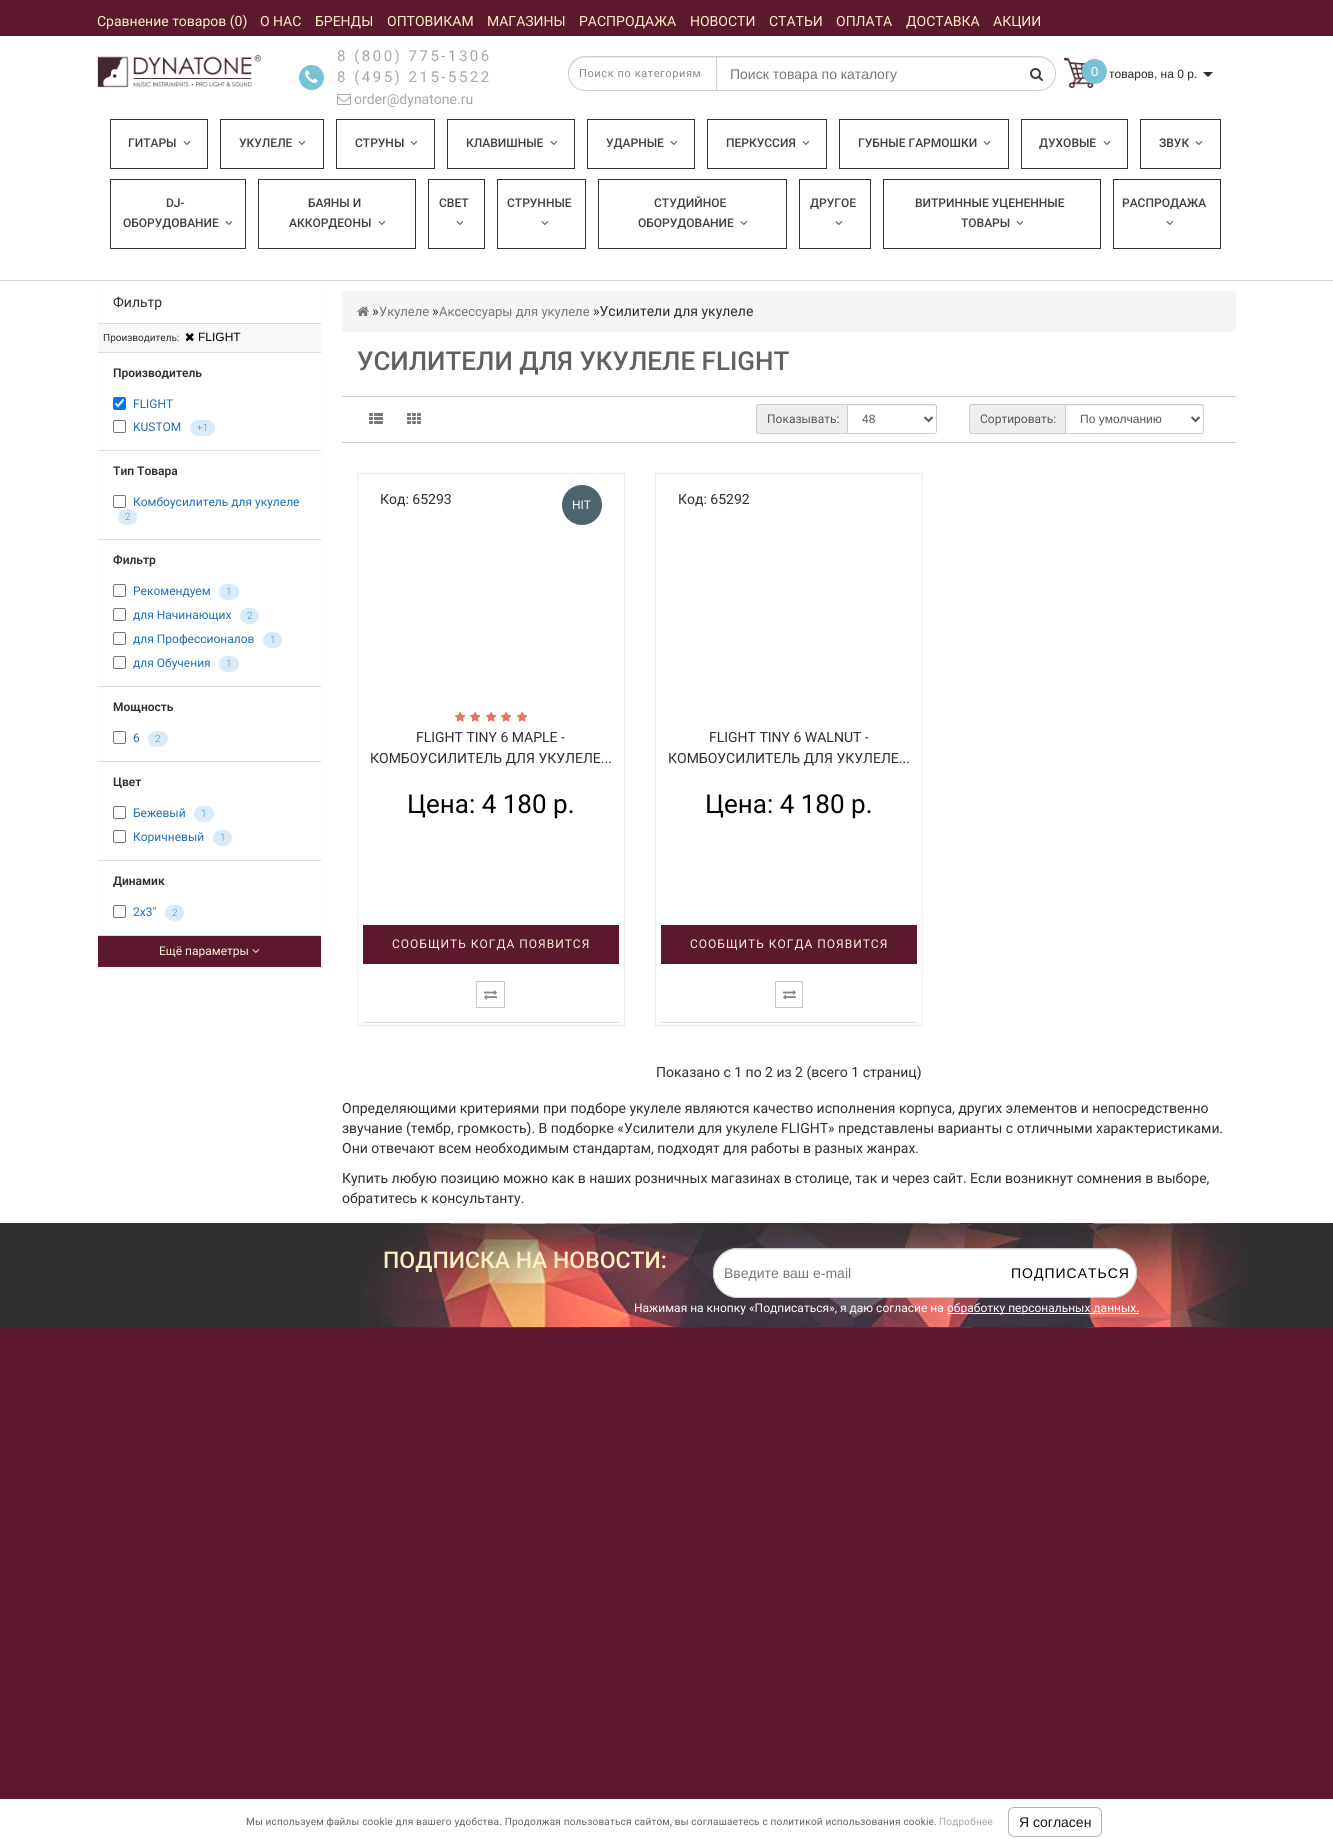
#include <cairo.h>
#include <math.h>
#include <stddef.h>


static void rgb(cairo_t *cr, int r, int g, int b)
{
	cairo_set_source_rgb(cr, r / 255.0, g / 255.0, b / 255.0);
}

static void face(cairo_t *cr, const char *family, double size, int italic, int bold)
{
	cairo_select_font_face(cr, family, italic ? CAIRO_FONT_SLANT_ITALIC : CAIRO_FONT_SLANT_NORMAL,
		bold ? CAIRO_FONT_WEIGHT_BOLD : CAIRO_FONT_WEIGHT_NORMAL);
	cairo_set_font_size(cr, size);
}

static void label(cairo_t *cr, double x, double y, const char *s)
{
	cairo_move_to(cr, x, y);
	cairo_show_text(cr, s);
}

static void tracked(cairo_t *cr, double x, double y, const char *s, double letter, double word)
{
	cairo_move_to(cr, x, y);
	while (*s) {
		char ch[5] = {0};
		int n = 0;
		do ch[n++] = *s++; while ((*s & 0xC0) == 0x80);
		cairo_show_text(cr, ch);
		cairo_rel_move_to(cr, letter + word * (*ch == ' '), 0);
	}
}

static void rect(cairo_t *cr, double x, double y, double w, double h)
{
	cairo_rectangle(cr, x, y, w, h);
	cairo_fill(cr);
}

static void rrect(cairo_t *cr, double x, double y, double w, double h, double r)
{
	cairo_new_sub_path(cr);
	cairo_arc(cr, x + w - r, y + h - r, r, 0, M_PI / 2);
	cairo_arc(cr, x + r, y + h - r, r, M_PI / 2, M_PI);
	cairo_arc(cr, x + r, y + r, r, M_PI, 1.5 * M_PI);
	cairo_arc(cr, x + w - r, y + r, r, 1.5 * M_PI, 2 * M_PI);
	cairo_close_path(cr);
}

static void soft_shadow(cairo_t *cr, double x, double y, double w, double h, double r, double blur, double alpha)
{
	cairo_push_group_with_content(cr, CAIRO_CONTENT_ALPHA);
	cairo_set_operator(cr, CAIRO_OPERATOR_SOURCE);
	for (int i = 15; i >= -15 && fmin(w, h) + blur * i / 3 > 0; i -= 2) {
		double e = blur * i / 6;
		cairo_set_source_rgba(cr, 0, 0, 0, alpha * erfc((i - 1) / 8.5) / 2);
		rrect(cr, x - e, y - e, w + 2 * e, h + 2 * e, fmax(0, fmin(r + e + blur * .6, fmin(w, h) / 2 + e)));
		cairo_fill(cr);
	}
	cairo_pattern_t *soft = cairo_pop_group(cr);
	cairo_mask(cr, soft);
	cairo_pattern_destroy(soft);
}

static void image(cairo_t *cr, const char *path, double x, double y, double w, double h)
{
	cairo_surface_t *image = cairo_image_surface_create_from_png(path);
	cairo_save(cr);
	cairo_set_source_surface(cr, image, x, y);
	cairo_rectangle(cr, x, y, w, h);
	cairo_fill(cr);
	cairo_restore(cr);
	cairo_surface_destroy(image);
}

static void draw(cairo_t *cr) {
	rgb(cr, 255, 255, 255);
	cairo_paint(cr);
	rgb(cr, 92, 25, 46);
	rect(cr, 0, 0, 1333, 36);
	face(cr, "Roboto", 14, 0, 0);
	rgb(cr, 251, 238, 196);
	label(cr, 97, 26, "Сравнение товаров (0)");
	label(cr, 260, 26, "О НАС");
	label(cr, 315, 26, "БРЕНДЫ");
	label(cr, 387, 26, "ОПТОВИКАМ");
	label(cr, 487, 26, "МАГАЗИНЫ");
	label(cr, 579, 26, "РАСПРОДАЖА");
	label(cr, 690, 26, "НОВОСТИ");
	label(cr, 769, 26, "СТАТЬИ");
	label(cr, 836, 26, "ОПЛАТА");
	label(cr, 906, 26, "ДОСТАВКА");
	label(cr, 993, 26, "АКЦИИ");
	rgb(cr, 212, 212, 212);
	rect(cr, 0, 280, 1333, 1);
	image(cr, "image0.png", 97, 55, 165, 33);
	face(cr, "Roboto", 15, 0, 0);
	rgb(cr, 167, 167, 167);
	tracked(cr, 337, 61, "8 (800) 775-1306", 2.5, 0);
	rgb(cr, 121, 193, 212);
	cairo_new_path(cr);
	cairo_arc(cr, 311.5, 77.5, 12.5, 0, 2 * M_PI);
	cairo_fill(cr);
	image(cr, "image1.png", 305, 70, 13, 13);
	rgb(cr, 167, 167, 167);
	tracked(cr, 337, 82, "8 (495) 215-5522", 2.5, 0);
	image(cr, "image2.png", 337, 94, 14, 11);
	face(cr, "Roboto", 14, 0, 0);
	label(cr, 354, 104, "order@dynatone.ru");
	rgb(cr, 236, 236, 236);
	cairo_new_path(cr);
	cairo_move_to(cr, 586, 58);
	cairo_line_to(cr, 717, 58);
	cairo_line_to(cr, 717, 57);
	cairo_line_to(cr, 586, 57);
	cairo_curve_to(cr, 576, 57, 569, 64, 569, 74);
	cairo_line_to(cr, 569, 77);
	cairo_curve_to(cr, 568, 68, 574, 58, 586, 58);
	cairo_close_path(cr);
	cairo_fill(cr);
	cairo_new_path(cr);
	cairo_move_to(cr, 585.5, 56.5);
	cairo_line_to(cr, 717.5, 56.5);
	cairo_line_to(cr, 717.5, 90.5);
	cairo_line_to(cr, 585.5, 90.5);
	cairo_curve_to(cr, 576, 90.5, 568.5, 83, 568.5, 73.5);
	cairo_curve_to(cr, 568.5, 64, 576, 56.5, 585.5, 56.5);
	cairo_close_path(cr);
	rgb(cr, 204, 204, 204);
	cairo_set_line_width(cr, 1);
	cairo_stroke(cr);
	face(cr, "Roboto", 11, 0, 0);
	rgb(cr, 136, 136, 136);
	tracked(cr, 579, 77, "Поиск по категориям", 0.6, 0);
	rgb(cr, 255, 255, 255);
	cairo_new_path(cr);
	cairo_move_to(cr, 716, 56);
	cairo_line_to(cr, 1038.5, 56);
	cairo_curve_to(cr, 1048, 56, 1056, 64, 1056, 73.5);
	cairo_curve_to(cr, 1056, 83, 1048, 91, 1038.5, 91);
	cairo_line_to(cr, 716, 91);
	cairo_close_path(cr);
	cairo_fill(cr);
	rgb(cr, 236, 236, 236);
	cairo_new_path(cr);
	cairo_move_to(cr, 717, 58);
	cairo_line_to(cr, 1038, 58);
	cairo_curve_to(cr, 1048, 58, 1055, 65, 1055, 74);
	cairo_curve_to(cr, 1055, 65, 1048, 57, 1038, 57);
	cairo_line_to(cr, 717, 57);
	cairo_close_path(cr);
	cairo_fill(cr);
	cairo_new_path(cr);
	cairo_move_to(cr, 716.5, 56.5);
	cairo_line_to(cr, 1038.5, 56.5);
	cairo_curve_to(cr, 1048, 56.5, 1055.5, 64, 1055.5, 73.5);
	cairo_curve_to(cr, 1055.5, 83, 1048, 90.5, 1038.5, 90.5);
	cairo_line_to(cr, 716.5, 90.5);
	cairo_close_path(cr);
	rgb(cr, 204, 204, 204);
	cairo_stroke(cr);
	face(cr, "Liberation Sans", 14, 0, 0);
	rgb(cr, 119, 119, 119);
	label(cr, 730, 79, "Поиск товара по каталогу");
	image(cr, "image3.png", 1030, 68, 13, 13);
	image(cr, "image4.png", 1064, 57, 30, 31);
	rgb(cr, 121, 193, 212);
	cairo_arc(cr, 1094.5, 71.5, 12.5, 0, 2 * M_PI);
	cairo_fill(cr);
	face(cr, "Liberation Sans", 13, 0, 0);
	rgb(cr, 255, 255, 255);
	label(cr, 1091, 76, "0");
	face(cr, "Liberation Sans", 12, 0, 0);
	rgb(cr, 42, 38, 35);
	label(cr, 1109, 78, "товаров, на 0 р.");
	cairo_new_path(cr);
	cairo_move_to(cr, 1203, 72);
	cairo_line_to(cr, 1213, 72);
	cairo_line_to(cr, 1208, 77);
	cairo_close_path(cr);
	cairo_fill(cr);
	cairo_rectangle(cr, 110.5, 119.5, 97, 49);
	rgb(cr, 51, 51, 51);
	cairo_stroke(cr);
	face(cr, "Roboto Medium", 12, 0, 0);
	rgb(cr, 64, 64, 64);
	label(cr, 128, 147, "ГИТАРЫ");
	image(cr, "image5.png", 183, 141, 8, 4);
	cairo_rectangle(cr, 220.5, 119.5, 103, 49);
	rgb(cr, 51, 51, 51);
	cairo_stroke(cr);
	rgb(cr, 64, 64, 64);
	label(cr, 239, 147, "УКУЛЕЛЕ");
	image(cr, "image5.png", 298, 141, 8, 4);
	cairo_rectangle(cr, 336.5, 119.5, 98, 49);
	rgb(cr, 51, 51, 51);
	cairo_stroke(cr);
	rgb(cr, 64, 64, 64);
	label(cr, 355, 147, "СТРУНЫ");
	image(cr, "image5.png", 410, 141, 8, 4);
	cairo_rectangle(cr, 447.5, 119.5, 127, 49);
	rgb(cr, 51, 51, 51);
	cairo_stroke(cr);
	rgb(cr, 64, 64, 64);
	label(cr, 466, 147, "КЛАВИШНЫЕ");
	image(cr, "image5.png", 550, 141, 8, 4);
	cairo_rectangle(cr, 587.5, 119.5, 107, 49);
	rgb(cr, 51, 51, 51);
	cairo_stroke(cr);
	rgb(cr, 64, 64, 64);
	label(cr, 606, 147, "УДАРНЫЕ");
	image(cr, "image5.png", 670, 141, 8, 4);
	cairo_rectangle(cr, 707.5, 119.5, 119, 49);
	rgb(cr, 51, 51, 51);
	cairo_stroke(cr);
	rgb(cr, 64, 64, 64);
	label(cr, 726, 147, "ПЕРКУССИЯ");
	image(cr, "image5.png", 802, 141, 8, 4);
	cairo_rectangle(cr, 839.5, 119.5, 169, 49);
	rgb(cr, 51, 51, 51);
	cairo_stroke(cr);
	rgb(cr, 64, 64, 64);
	label(cr, 858, 147, "ГУБНЫЕ ГАРМОШКИ");
	image(cr, "image5.png", 983, 141, 8, 4);
	cairo_rectangle(cr, 1021.5, 119.5, 106, 49);
	rgb(cr, 51, 51, 51);
	cairo_stroke(cr);
	rgb(cr, 64, 64, 64);
	label(cr, 1039, 147, "ДУХОВЫЕ");
	image(cr, "image5.png", 1103, 141, 8, 4);
	cairo_rectangle(cr, 1140.5, 119.5, 80, 49);
	rgb(cr, 51, 51, 51);
	cairo_stroke(cr);
	rgb(cr, 64, 64, 64);
	label(cr, 1159, 147, "ЗВУК");
	image(cr, "image5.png", 1195, 141, 8, 4);
	cairo_rectangle(cr, 110.5, 179.5, 135, 69);
	rgb(cr, 51, 51, 51);
	cairo_stroke(cr);
	rgb(cr, 64, 64, 64);
	label(cr, 166, 207, "DJ-");
	label(cr, 123, 227, "ОБОРУДОВАНИЕ");
	image(cr, "image5.png", 225, 221, 8, 4);
	cairo_rectangle(cr, 258.5, 179.5, 157, 69);
	rgb(cr, 51, 51, 51);
	cairo_stroke(cr);
	rgb(cr, 64, 64, 64);
	label(cr, 308, 207, "БАЯНЫ И");
	label(cr, 289, 227, "АККОРДЕОНЫ");
	image(cr, "image5.png", 378, 221, 8, 4);
	cairo_rectangle(cr, 428.5, 179.5, 56, 69);
	rgb(cr, 51, 51, 51);
	cairo_stroke(cr);
	rgb(cr, 64, 64, 64);
	label(cr, 439, 207, "СВЕТ");
	image(cr, "image5.png", 456, 221, 8, 4);
	cairo_rectangle(cr, 497.5, 179.5, 88, 69);
	rgb(cr, 51, 51, 51);
	cairo_stroke(cr);
	rgb(cr, 64, 64, 64);
	label(cr, 507, 207, "СТРУННЫЕ");
	image(cr, "image5.png", 541, 221, 8, 4);
	cairo_rectangle(cr, 598.5, 179.5, 188, 69);
	rgb(cr, 51, 51, 51);
	cairo_stroke(cr);
	rgb(cr, 64, 64, 64);
	label(cr, 654, 207, "СТУДИЙНОЕ");
	label(cr, 638, 227, "ОБОРУДОВАНИЕ");
	image(cr, "image5.png", 740, 221, 8, 4);
	cairo_rectangle(cr, 799.5, 179.5, 71, 69);
	rgb(cr, 51, 51, 51);
	cairo_stroke(cr);
	rgb(cr, 64, 64, 64);
	label(cr, 810, 207, "ДРУГОЕ");
	image(cr, "image5.png", 835, 221, 8, 4);
	cairo_rectangle(cr, 883.5, 179.5, 217, 69);
	rgb(cr, 51, 51, 51);
	cairo_stroke(cr);
	rgb(cr, 64, 64, 64);
	label(cr, 915, 207, "ВИТРИННЫЕ УЦЕНЕННЫЕ");
	label(cr, 961, 227, "ТОВАРЫ");
	image(cr, "image5.png", 1016, 221, 8, 4);
	cairo_rectangle(cr, 1113.5, 179.5, 107, 69);
	rgb(cr, 51, 51, 51);
	cairo_stroke(cr);
	rgb(cr, 64, 64, 64);
	label(cr, 1122, 207, "РАСПРОДАЖА");
	image(cr, "image5.png", 1166, 221, 8, 4);
	rgb(cr, 0, 0, 0);
	soft_shadow(cr, 97, 282, 225, 687, 4, 0.5, 0.05);
	rgb(cr, 255, 255, 255);
	rrect(cr, 97, 281, 225, 687, 4);
	cairo_fill(cr);
	face(cr, "Roboto", 14, 0, 0);
	rgb(cr, 47, 47, 47);
	label(cr, 113, 307, "Фильтр");
	rgb(cr, 221, 221, 221);
	rect(cr, 98, 323, 223, 1);
	rect(cr, 98, 352, 223, 1);
	rgb(cr, 248, 248, 248);
	rect(cr, 98, 324, 223, 28);
	face(cr, "Roboto", 10, 0, 0);
	rgb(cr, 47, 47, 47);
	label(cr, 103, 341, "Производитель:");
	image(cr, "image6.png", 185, 333, 9, 9);
	face(cr, "Liberation Sans", 12, 0, 0);
	rgb(cr, 0, 0, 0);
	label(cr, 198, 341, "FLIGHT");
	rgb(cr, 221, 221, 221);
	rect(cr, 98, 450, 223, 1);
	face(cr, "Roboto SemiBold", 12, 0, 0);
	rgb(cr, 47, 47, 47);
	label(cr, 113, 377, "Производитель");
	rgb(cr, 0, 117, 255);
	rrect(cr, 113, 397, 13, 13, 2);
	cairo_fill(cr);
	cairo_new_path(cr);
	cairo_move_to(cr, 115.5, 403.5);
	cairo_line_to(cr, 118, 406);
	cairo_line_to(cr, 123.5, 399.5);
	rgb(cr, 255, 255, 255);
	cairo_set_line_width(cr, 2.1);
	cairo_stroke(cr);
	face(cr, "Roboto", 12, 0, 0);
	rgb(cr, 35, 107, 187);
	label(cr, 133, 408, "FLIGHT");
	rrect(cr, 113.5, 420.5, 12, 12, 1.5);
	rgb(cr, 118, 118, 118);
	cairo_set_line_width(cr, 1);
	cairo_stroke(cr);
	rgb(cr, 35, 107, 187);
	label(cr, 133, 431, "KUSTOM");
	rgb(cr, 219, 234, 249);
	rrect(cr, 190, 420, 25, 16, 8);
	cairo_fill(cr);
	face(cr, "Roboto ExtraLight", 10, 0, 0);
	rgb(cr, 14, 106, 147);
	label(cr, 197, 431, "+1");
	rgb(cr, 221, 221, 221);
	rect(cr, 98, 539, 223, 1);
	face(cr, "Roboto SemiBold", 12, 0, 0);
	rgb(cr, 47, 47, 47);
	label(cr, 113, 475, "Тип Товара");
	rrect(cr, 113.5, 495.5, 12, 12, 1.5);
	rgb(cr, 118, 118, 118);
	cairo_stroke(cr);
	face(cr, "Roboto", 12, 0, 0);
	rgb(cr, 35, 107, 187);
	label(cr, 133, 506, "Комбоусилитель для укулеле");
	rgb(cr, 219, 234, 249);
	rrect(cr, 118, 509, 19, 16, 8);
	cairo_fill(cr);
	face(cr, "Roboto ExtraLight", 10, 0, 0);
	rgb(cr, 14, 106, 147);
	label(cr, 125, 520, "2");
	rgb(cr, 221, 221, 221);
	rect(cr, 98, 686, 223, 1);
	face(cr, "Roboto SemiBold", 12, 0, 0);
	rgb(cr, 47, 47, 47);
	label(cr, 113, 564, "Фильтр");
	rrect(cr, 113.5, 584.5, 12, 12, 1.5);
	rgb(cr, 118, 118, 118);
	cairo_stroke(cr);
	face(cr, "Roboto", 12, 0, 0);
	rgb(cr, 35, 107, 187);
	label(cr, 133, 595, "Рекомендуем");
	rgb(cr, 219, 234, 249);
	rrect(cr, 219, 584, 20, 16, 8);
	cairo_fill(cr);
	face(cr, "Roboto ExtraLight", 10, 0, 0);
	rgb(cr, 14, 106, 147);
	label(cr, 226, 595, "1");
	rrect(cr, 113.5, 608.5, 12, 12, 1.5);
	rgb(cr, 118, 118, 118);
	cairo_stroke(cr);
	face(cr, "Roboto", 12, 0, 0);
	rgb(cr, 35, 107, 187);
	label(cr, 133, 619, "для Начинающих");
	rgb(cr, 219, 234, 249);
	rrect(cr, 240, 608, 19, 16, 8);
	cairo_fill(cr);
	face(cr, "Roboto ExtraLight", 10, 0, 0);
	rgb(cr, 14, 106, 147);
	label(cr, 247, 619, "2");
	rrect(cr, 113.5, 632.5, 12, 12, 1.5);
	rgb(cr, 118, 118, 118);
	cairo_stroke(cr);
	face(cr, "Roboto", 12, 0, 0);
	rgb(cr, 35, 107, 187);
	label(cr, 133, 643, "для Профессионалов");
	rgb(cr, 219, 234, 249);
	rrect(cr, 263, 632, 19, 16, 8);
	cairo_fill(cr);
	face(cr, "Roboto ExtraLight", 10, 0, 0);
	rgb(cr, 14, 106, 147);
	label(cr, 270, 643, "1");
	rrect(cr, 113.5, 656.5, 12, 12, 1.5);
	rgb(cr, 118, 118, 118);
	cairo_stroke(cr);
	face(cr, "Roboto", 12, 0, 0);
	rgb(cr, 35, 107, 187);
	label(cr, 133, 667, "для Обучения");
	rgb(cr, 219, 234, 249);
	rrect(cr, 219, 656, 20, 16, 8);
	cairo_fill(cr);
	face(cr, "Roboto ExtraLight", 10, 0, 0);
	rgb(cr, 14, 106, 147);
	label(cr, 226, 667, "1");
	rgb(cr, 221, 221, 221);
	rect(cr, 98, 761, 223, 1);
	face(cr, "Roboto SemiBold", 12, 0, 0);
	rgb(cr, 47, 47, 47);
	label(cr, 113, 711, "Мощность");
	rrect(cr, 113.5, 731.5, 12, 12, 1.5);
	rgb(cr, 118, 118, 118);
	cairo_stroke(cr);
	face(cr, "Roboto", 12, 0, 0);
	rgb(cr, 35, 107, 187);
	label(cr, 133, 742, "6");
	rgb(cr, 219, 234, 249);
	rrect(cr, 148, 731, 20, 16, 8);
	cairo_fill(cr);
	face(cr, "Roboto ExtraLight", 10, 0, 0);
	rgb(cr, 14, 106, 147);
	label(cr, 155, 742, "2");
	rgb(cr, 221, 221, 221);
	rect(cr, 98, 860, 223, 1);
	face(cr, "Roboto SemiBold", 12, 0, 0);
	rgb(cr, 47, 47, 47);
	label(cr, 113, 786, "Цвет");
	rrect(cr, 113.5, 806.5, 12, 12, 1.5);
	rgb(cr, 118, 118, 118);
	cairo_stroke(cr);
	face(cr, "Roboto", 12, 0, 0);
	rgb(cr, 35, 107, 187);
	label(cr, 133, 817, "Бежевый");
	rgb(cr, 219, 234, 249);
	rrect(cr, 194, 806, 20, 16, 8);
	cairo_fill(cr);
	face(cr, "Roboto ExtraLight", 10, 0, 0);
	rgb(cr, 14, 106, 147);
	label(cr, 201, 817, "1");
	rrect(cr, 113.5, 830.5, 12, 12, 1.5);
	rgb(cr, 118, 118, 118);
	cairo_stroke(cr);
	face(cr, "Roboto", 12, 0, 0);
	rgb(cr, 35, 107, 187);
	label(cr, 133, 841, "Коричневый");
	rgb(cr, 219, 234, 249);
	rrect(cr, 213, 830, 19, 16, 8);
	cairo_fill(cr);
	face(cr, "Roboto ExtraLight", 10, 0, 0);
	rgb(cr, 14, 106, 147);
	label(cr, 220, 841, "1");
	rgb(cr, 221, 221, 221);
	rect(cr, 98, 935, 223, 1);
	face(cr, "Roboto SemiBold", 12, 0, 0);
	rgb(cr, 47, 47, 47);
	label(cr, 113, 885, "Динамик");
	rrect(cr, 113.5, 905.5, 12, 12, 1.5);
	rgb(cr, 118, 118, 118);
	cairo_stroke(cr);
	face(cr, "Roboto", 12, 0, 0);
	rgb(cr, 35, 107, 187);
	label(cr, 133, 916, "2x3\"");
	rgb(cr, 219, 234, 249);
	rrect(cr, 165, 905, 19, 16, 8);
	cairo_fill(cr);
	face(cr, "Roboto ExtraLight", 10, 0, 0);
	rgb(cr, 14, 106, 147);
	label(cr, 172, 916, "2");
	rgb(cr, 92, 25, 46);
	rect(cr, 98, 936, 223, 31);
	face(cr, "Roboto", 12, 0, 0);
	rgb(cr, 251, 240, 219);
	label(cr, 159, 955, "Ещё параметры");
	image(cr, "image7.png", 252, 949, 8, 4);
	rgb(cr, 245, 245, 245);
	rect(cr, 342, 291, 894, 41);
	image(cr, "image8.png", 357, 306, 12, 10);
	face(cr, "Roboto", 14, 0, 0);
	rgb(cr, 47, 47, 47);
	label(cr, 372, 316, "»");
	face(cr, "Roboto", 13, 0, 0);
	rgb(cr, 119, 119, 119);
	label(cr, 379, 316, "Укулеле");
	face(cr, "Roboto", 14, 0, 0);
	rgb(cr, 47, 47, 47);
	label(cr, 432, 316, "»");
	face(cr, "Roboto", 13, 0, 0);
	rgb(cr, 119, 119, 119);
	label(cr, 439, 316, "Аксессуары для укулеле");
	face(cr, "Roboto", 14, 0, 0);
	rgb(cr, 47, 47, 47);
	label(cr, 593, 316, "»Усилители для укулеле");
	face(cr, "Roboto Medium", 26, 0, 0);
	rgb(cr, 97, 97, 97);
	label(cr, 357, 370, "УСИЛИТЕЛИ ДЛЯ УКУЛЕЛЕ FLIGHT");
	rgb(cr, 204, 204, 204);
	rect(cr, 342, 396, 894, 1);
	rect(cr, 342, 442, 894, 1);
	image(cr, "image9.png", 369, 413, 14, 11);
	image(cr, "image10.png", 407, 413, 14, 11);
	rgb(cr, 238, 238, 238);
	rrect(cr, 756, 404, 93, 30, 3);
	cairo_fill(cr);
	rgb(cr, 204, 204, 204);
	cairo_set_fill_rule(cr, CAIRO_FILL_RULE_EVEN_ODD);
	cairo_new_path(cr);
	cairo_move_to(cr, 759, 404);
	cairo_line_to(cr, 846, 404);
	cairo_curve_to(cr, 848, 404, 849, 405, 849, 407);
	cairo_line_to(cr, 849, 431);
	cairo_curve_to(cr, 849, 433, 848, 434, 846, 434);
	cairo_line_to(cr, 759, 434);
	cairo_curve_to(cr, 757, 434, 756, 433, 756, 431);
	cairo_line_to(cr, 756, 407);
	cairo_curve_to(cr, 756, 405, 757, 404, 759, 404);
	cairo_close_path(cr);
	cairo_move_to(cr, 759, 405);
	cairo_line_to(cr, 846, 405);
	cairo_curve_to(cr, 848, 405, 849, 406, 849, 407);
	cairo_line_to(cr, 849, 431);
	cairo_curve_to(cr, 849, 432, 848, 433, 846, 433);
	cairo_line_to(cr, 759, 433);
	cairo_curve_to(cr, 758, 433, 757, 432, 757, 431);
	cairo_line_to(cr, 757, 407);
	cairo_curve_to(cr, 757, 406, 758, 405, 759, 405);
	cairo_close_path(cr);
	cairo_fill(cr);
	face(cr, "Roboto", 12, 0, 0);
	rgb(cr, 85, 85, 85);
	label(cr, 767, 423, "Показывать:");
	rgb(cr, 255, 255, 255);
	cairo_new_path(cr);
	cairo_move_to(cr, 847, 404);
	cairo_line_to(cr, 934, 404);
	cairo_curve_to(cr, 935.5, 404, 937, 405.5, 937, 407);
	cairo_line_to(cr, 937, 431);
	cairo_curve_to(cr, 937, 432.5, 935.5, 434, 934, 434);
	cairo_line_to(cr, 847, 434);
	cairo_close_path(cr);
	cairo_fill(cr);
	rgb(cr, 236, 236, 236);
	cairo_set_fill_rule(cr, CAIRO_FILL_RULE_WINDING);
	cairo_new_path(cr);
	cairo_move_to(cr, 848, 406);
	cairo_line_to(cr, 934, 406);
	cairo_curve_to(cr, 935, 406, 936, 407, 936, 408);
	cairo_line_to(cr, 936, 407);
	cairo_curve_to(cr, 936, 406, 935, 405, 934, 405);
	cairo_line_to(cr, 848, 405);
	cairo_close_path(cr);
	cairo_fill(cr);
	cairo_new_path(cr);
	cairo_move_to(cr, 847.5, 404.5);
	cairo_line_to(cr, 934, 404.5);
	cairo_curve_to(cr, 935.5, 404.5, 936.5, 405.5, 936.5, 407);
	cairo_line_to(cr, 936.5, 431);
	cairo_curve_to(cr, 936.5, 432.5, 935.5, 433.5, 934, 433.5);
	cairo_line_to(cr, 847.5, 433.5);
	cairo_close_path(cr);
	rgb(cr, 204, 204, 204);
	cairo_stroke(cr);
	cairo_new_path(cr);
	cairo_move_to(cr, 924.5, 417);
	cairo_line_to(cr, 928.5, 421);
	cairo_line_to(cr, 932.5, 417);
	rgb(cr, 85, 85, 85);
	cairo_set_line_width(cr, 2);
	cairo_stroke(cr);
	face(cr, "Liberation Sans", 12, 0, 0);
	label(cr, 862, 423, "48");
	rgb(cr, 238, 238, 238);
	rrect(cr, 969, 404, 98, 30, 3);
	cairo_fill(cr);
	rgb(cr, 204, 204, 204);
	cairo_set_fill_rule(cr, CAIRO_FILL_RULE_EVEN_ODD);
	cairo_new_path(cr);
	cairo_move_to(cr, 972, 404);
	cairo_line_to(cr, 1064, 404);
	cairo_curve_to(cr, 1066, 404, 1067, 405, 1067, 407);
	cairo_line_to(cr, 1067, 431);
	cairo_curve_to(cr, 1067, 433, 1066, 434, 1064, 434);
	cairo_line_to(cr, 972, 434);
	cairo_curve_to(cr, 970, 434, 969, 433, 969, 431);
	cairo_line_to(cr, 969, 407);
	cairo_curve_to(cr, 969, 405, 970, 404, 972, 404);
	cairo_close_path(cr);
	cairo_move_to(cr, 972, 405);
	cairo_line_to(cr, 1064, 405);
	cairo_curve_to(cr, 1066, 405, 1067, 406, 1067, 407);
	cairo_line_to(cr, 1067, 431);
	cairo_curve_to(cr, 1067, 432, 1066, 433, 1064, 433);
	cairo_line_to(cr, 972, 433);
	cairo_curve_to(cr, 971, 433, 970, 432, 970, 431);
	cairo_line_to(cr, 970, 407);
	cairo_curve_to(cr, 970, 406, 971, 405, 972, 405);
	cairo_close_path(cr);
	cairo_fill(cr);
	face(cr, "Roboto", 12, 0, 0);
	rgb(cr, 85, 85, 85);
	label(cr, 980, 423, "Сортировать:");
	rgb(cr, 255, 255, 255);
	cairo_new_path(cr);
	cairo_move_to(cr, 1065, 404);
	cairo_line_to(cr, 1201, 404);
	cairo_curve_to(cr, 1202.5, 404, 1204, 405.5, 1204, 407);
	cairo_line_to(cr, 1204, 431);
	cairo_curve_to(cr, 1204, 432.5, 1202.5, 434, 1201, 434);
	cairo_line_to(cr, 1065, 434);
	cairo_close_path(cr);
	cairo_fill(cr);
	rgb(cr, 236, 236, 236);
	cairo_set_fill_rule(cr, CAIRO_FILL_RULE_WINDING);
	cairo_new_path(cr);
	cairo_move_to(cr, 1066, 406);
	cairo_line_to(cr, 1201, 406);
	cairo_curve_to(cr, 1202, 406, 1203, 407, 1203, 408);
	cairo_curve_to(cr, 1203, 407, 1203, 405, 1201, 405);
	cairo_line_to(cr, 1066, 405);
	cairo_close_path(cr);
	cairo_fill(cr);
	cairo_new_path(cr);
	cairo_move_to(cr, 1065.5, 404.5);
	cairo_line_to(cr, 1201, 404.5);
	cairo_curve_to(cr, 1202.5, 404.5, 1203.5, 405.5, 1203.5, 407);
	cairo_line_to(cr, 1203.5, 431);
	cairo_curve_to(cr, 1203.5, 432.5, 1202.5, 433.5, 1201, 433.5);
	cairo_line_to(cr, 1065.5, 433.5);
	cairo_close_path(cr);
	rgb(cr, 204, 204, 204);
	cairo_set_line_width(cr, 1);
	cairo_stroke(cr);
	cairo_new_path(cr);
	cairo_move_to(cr, 1191.5, 417);
	cairo_line_to(cr, 1195.5, 421);
	cairo_line_to(cr, 1199.5, 417);
	rgb(cr, 85, 85, 85);
	cairo_set_line_width(cr, 2);
	cairo_stroke(cr);
	face(cr, "Liberation Sans", 12, 0, 0);
	label(cr, 1080, 423, "По умолчанию");
	cairo_rectangle(cr, 357.5, 473.5, 267, 552);
	rgb(cr, 235, 235, 235);
	cairo_set_line_width(cr, 1);
	cairo_stroke(cr);
	face(cr, "Roboto", 14, 0, 0);
	rgb(cr, 47, 47, 47);
	label(cr, 380, 504, "Код: 65293");
	rgb(cr, 77, 100, 108);
	cairo_new_path(cr);
	cairo_arc(cr, 582, 505, 20, 0, 2 * M_PI);
	cairo_fill(cr);
	face(cr, "Roboto", 12, 0, 0);
	rgb(cr, 255, 255, 255);
	label(cr, 572, 509, "HIT");
	image(cr, "image11.png", 455, 711, 11, 11);
	image(cr, "image12.png", 455, 711, 11, 11);
	image(cr, "image11.png", 470, 711, 11, 11);
	image(cr, "image12.png", 470, 711, 11, 11);
	image(cr, "image11.png", 486, 711, 11, 11);
	image(cr, "image12.png", 486, 711, 11, 11);
	image(cr, "image11.png", 501, 711, 11, 11);
	image(cr, "image12.png", 501, 711, 11, 11);
	image(cr, "image11.png", 517, 711, 11, 11);
	image(cr, "image12.png", 517, 711, 11, 11);
	face(cr, "Roboto", 14, 0, 0);
	rgb(cr, 47, 47, 47);
	label(cr, 416, 742, "FLIGHT TINY 6 MAPLE -");
	label(cr, 370, 763, "КОМБОУСИЛИТЕЛЬ ДЛЯ УКУЛЕЛЕ...");
	face(cr, "Roboto", 26, 0, 0);
	rgb(cr, 0, 0, 0);
	label(cr, 407, 813, "Цена: 4 180 р.");
	rgb(cr, 92, 25, 46);
	rect(cr, 363, 925, 256, 39);
	face(cr, "Roboto", 12, 0, 0);
	rgb(cr, 251, 240, 219);
	tracked(cr, 392, 948, "СООБЩИТЬ КОГДА ПОЯВИТСЯ", 1, 0);
	cairo_rectangle(cr, 476.5, 981.5, 28, 26);
	rgb(cr, 200, 200, 200);
	cairo_stroke(cr);
	image(cr, "image13.png", 484, 990, 13, 10);
	rgb(cr, 221, 221, 221);
	rect(cr, 363, 1022, 256, 1);
	cairo_rectangle(cr, 655.5, 473.5, 267, 552);
	rgb(cr, 235, 235, 235);
	cairo_stroke(cr);
	face(cr, "Roboto", 14, 0, 0);
	rgb(cr, 47, 47, 47);
	label(cr, 678, 504, "Код: 65292");
	label(cr, 709, 742, "FLIGHT TINY 6 WALNUT -");
	label(cr, 668, 763, "КОМБОУСИЛИТЕЛЬ ДЛЯ УКУЛЕЛЕ...");
	face(cr, "Roboto", 26, 0, 0);
	rgb(cr, 0, 0, 0);
	label(cr, 705, 813, "Цена: 4 180 р.");
	rgb(cr, 92, 25, 46);
	rect(cr, 661, 925, 256, 39);
	face(cr, "Roboto", 12, 0, 0);
	rgb(cr, 251, 240, 219);
	tracked(cr, 690, 948, "СООБЩИТЬ КОГДА ПОЯВИТСЯ", 1, 0);
	cairo_rectangle(cr, 775.5, 981.5, 27, 26);
	rgb(cr, 200, 200, 200);
	cairo_stroke(cr);
	image(cr, "image13.png", 783, 990, 13, 10);
	rgb(cr, 221, 221, 221);
	rect(cr, 661, 1022, 256, 1);
	face(cr, "Roboto", 14, 0, 0);
	rgb(cr, 47, 47, 47);
	label(cr, 656, 1077, "Показано с 1 по 2 из 2 (всего 1 страниц)");
	label(cr, 342, 1113, "Определяющими критериями при подборе укулеле являются качество исполнения корпуса, других элементов и непосредственно");
	label(cr, 342, 1133, "звучание (тембр, громкость). В подборке «Усилители для укулеле FLIGHT» представлены варианты с отличными характеристиками.");
	label(cr, 342, 1153, "Они отвечают всем необходимым стандартам, подходят для работы в разных жанрах.");
	label(cr, 342, 1183, "Купить любую позицию можно как в наших розничных магазинах в столице, так и через сайт. Если возникнут сомнения в выборе,");
	label(cr, 342, 1203, "обратитесь к консультанту.");
	image(cr, "image14.png", 0, 1223, 1333, 105);
	face(cr, "Roboto Medium", 23, 0, 0);
	rgb(cr, 251, 238, 196);
	label(cr, 383, 1268, "ПОДПИСКА НА НОВОСТИ:");
	rgb(cr, 255, 255, 255);
	rrect(cr, 713, 1248, 424, 50, 25);
	cairo_fill(cr);
	rgb(cr, 236, 236, 236);
	cairo_new_path(cr);
	cairo_move_to(cr, 738, 1250);
	cairo_line_to(cr, 1112, 1250);
	cairo_curve_to(cr, 1125, 1250, 1136, 1261, 1136, 1274);
	cairo_curve_to(cr, 1136, 1260, 1125, 1249, 1112, 1249);
	cairo_line_to(cr, 738, 1249);
	cairo_curve_to(cr, 725, 1249, 714, 1260, 714, 1274);
	cairo_curve_to(cr, 714, 1261, 725, 1250, 738, 1250);
	cairo_close_path(cr);
	cairo_fill(cr);
	rrect(cr, 713.5, 1248.5, 423, 49, 24.5);
	rgb(cr, 204, 204, 204);
	cairo_stroke(cr);
	face(cr, "Liberation Sans", 14, 0, 0);
	rgb(cr, 119, 119, 119);
	label(cr, 724, 1278, "Введите ваш e-mail");
	rgb(cr, 0, 0, 0);
	tracked(cr, 1011, 1278, "ПОДПИСАТЬСЯ", 1, 0);
	face(cr, "Roboto", 12, 0, 0);
	rgb(cr, 255, 255, 255);
	label(cr, 634, 1312, "Нажимая на кнопку «Подписаться», я даю cогласие на");
	rect(cr, 947, 1313, 192, 1);
	label(cr, 947, 1312, "обработку персональных данных.");
	rgb(cr, 92, 25, 46);
	rect(cr, 0, 1328, 1333, 471);
	face(cr, "Roboto", 10, 0, 0);
	rgb(cr, 97, 97, 97);
	tracked(cr, 246, 1825, "Мы используем файлы cookie для вашего удобства. Продолжая пользоваться сайтом, вы соглашаетесь с политикой использования cookie.", 0.2, 0);
	rgb(cr, 167, 167, 167);
	tracked(cr, 939, 1825, "Подробнее", 0.2, 0);
	rrect(cr, 1008.5, 1807.5, 93, 29, 5.5);
	rgb(cr, 179, 179, 183);
	cairo_stroke(cr);
	face(cr, "Liberation Sans", 14, 0, 0);
	rgb(cr, 21, 21, 40);
	label(cr, 1019, 1827, "Я согласен");
}

int main(void) {
	cairo_surface_t *surface = cairo_image_surface_create(CAIRO_FORMAT_RGB24, 1333, 1844);
	cairo_t *cr = cairo_create(surface);
	cairo_font_options_t *options = cairo_font_options_create();
	cairo_font_options_set_hint_metrics(options, CAIRO_HINT_METRICS_OFF);
	cairo_font_options_set_hint_style(options, CAIRO_HINT_STYLE_NONE);
	cairo_set_font_options(cr, options);
	cairo_set_miter_limit(cr, 4);
	draw(cr);
	cairo_surface_write_to_png(surface, "render.png");
	cairo_font_options_destroy(options);
	cairo_destroy(cr);
	cairo_surface_destroy(surface);
	return 0;
}
